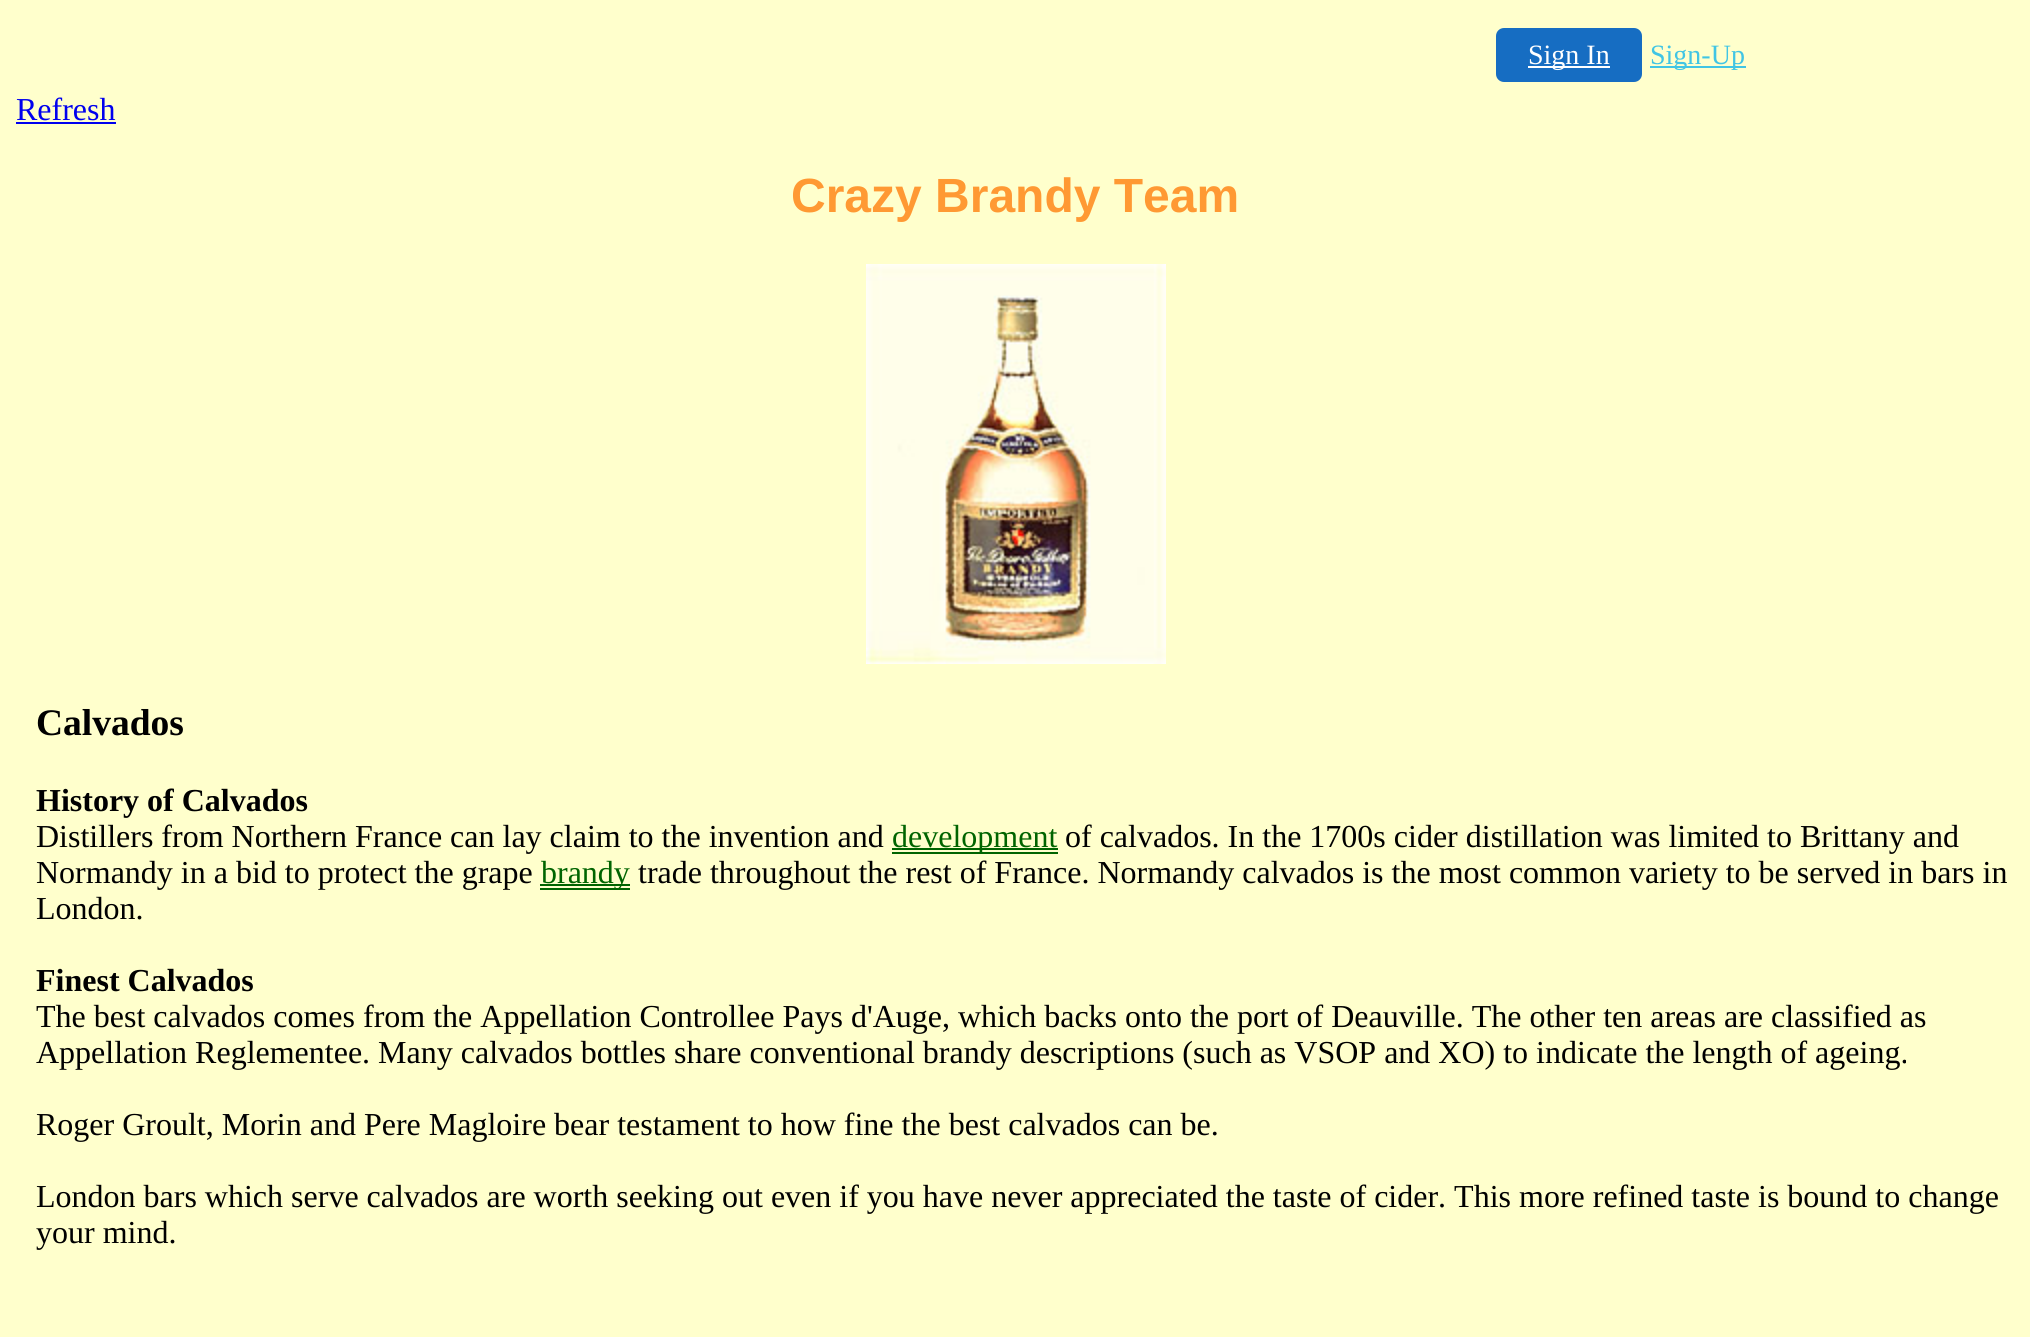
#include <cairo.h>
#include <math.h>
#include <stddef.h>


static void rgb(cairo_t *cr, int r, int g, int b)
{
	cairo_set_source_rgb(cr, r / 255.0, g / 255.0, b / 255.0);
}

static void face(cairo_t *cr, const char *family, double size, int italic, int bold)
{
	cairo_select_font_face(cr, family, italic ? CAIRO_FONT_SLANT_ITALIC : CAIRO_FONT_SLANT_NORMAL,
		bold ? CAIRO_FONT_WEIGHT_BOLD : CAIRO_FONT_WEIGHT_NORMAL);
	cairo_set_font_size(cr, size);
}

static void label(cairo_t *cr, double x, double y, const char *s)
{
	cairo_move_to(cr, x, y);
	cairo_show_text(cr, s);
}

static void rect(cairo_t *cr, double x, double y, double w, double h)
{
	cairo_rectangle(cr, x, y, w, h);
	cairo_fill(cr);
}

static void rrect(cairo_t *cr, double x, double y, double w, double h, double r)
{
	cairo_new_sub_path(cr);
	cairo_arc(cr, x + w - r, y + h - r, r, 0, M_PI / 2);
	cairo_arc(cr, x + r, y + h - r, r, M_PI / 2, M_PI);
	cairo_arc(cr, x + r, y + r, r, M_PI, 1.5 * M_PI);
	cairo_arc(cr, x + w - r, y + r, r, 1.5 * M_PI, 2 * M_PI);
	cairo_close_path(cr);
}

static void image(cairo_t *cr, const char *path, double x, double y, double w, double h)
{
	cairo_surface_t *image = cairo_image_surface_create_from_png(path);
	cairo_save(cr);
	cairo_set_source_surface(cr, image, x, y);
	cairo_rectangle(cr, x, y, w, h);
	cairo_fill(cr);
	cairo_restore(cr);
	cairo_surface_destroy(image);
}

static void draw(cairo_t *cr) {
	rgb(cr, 255, 255, 204);
	cairo_paint(cr);
	rgb(cr, 22, 109, 194);
	rrect(cr, 1497, 29, 144, 52, 7);
	cairo_fill_preserve(cr);
	cairo_stroke(cr);
	rgb(cr, 255, 255, 255);
	rect(cr, 1528, 66, 82, 2);
	face(cr, "Liberation Serif", 28, 0, 0);
	label(cr, 1528, 64, "Sign In");
	rgb(cr, 65, 197, 228);
	rect(cr, 1650, 66, 96, 2);
	label(cr, 1650, 64, "Sign-Up");
	face(cr, "Liberation Serif", 32, 0, 0);
	rgb(cr, 0, 0, 238);
	label(cr, 16, 120, "Refresh");
	rect(cr, 16, 122, 100, 2);
	face(cr, "Liberation Sans", 48, 0, 1);
	rgb(cr, 255, 153, 51);
	label(cr, 791, 212, "Crazy Brandy Team");
	image(cr, "image0.png", 866, 264, 300, 400);
	face(cr, "Liberation Serif", 37.5, 0, 1);
	rgb(cr, 0, 0, 0);
	label(cr, 36, 735, "Calvados");
	face(cr, "Liberation Serif", 32, 0, 1);
	label(cr, 36, 811, "History of Calvados");
	face(cr, "Liberation Serif", 32, 0, 0);
	label(cr, 36, 847, "Distillers from Northern France can lay claim to the invention and");
	rgb(cr, 0, 100, 0);
	rect(cr, 892, 852, 166, 2);
	rect(cr, 892, 848, 166, 2);
	label(cr, 892, 847, "development");
	rgb(cr, 0, 0, 0);
	label(cr, 1065, 847, "of calvados. In the 1700s cider distillation was limited to Brittany and");
	label(cr, 36, 883, "Normandy in a bid to protect the grape");
	rgb(cr, 0, 100, 0);
	rect(cr, 540, 888, 90, 2);
	rect(cr, 540, 884, 90, 2);
	label(cr, 541, 883, "brandy");
	rgb(cr, 0, 0, 0);
	label(cr, 638, 883, "trade throughout the rest of France. Normandy calvados is the most common variety to be served in bars in");
	label(cr, 36, 919, "London.");
	face(cr, "Liberation Serif", 32, 0, 1);
	label(cr, 36, 991, "Finest Calvados");
	face(cr, "Liberation Serif", 32, 0, 0);
	label(cr, 36, 1027, "The best calvados comes from the Appellation Controllee Pays d'Auge, which backs onto the port of Deauville. The other ten areas are classified as");
	label(cr, 36, 1063, "Appellation Reglementee. Many calvados bottles share conventional brandy descriptions (such as VSOP and XO) to indicate the length of ageing.");
	label(cr, 36, 1135, "Roger Groult, Morin and Pere Magloire bear testament to how fine the best calvados can be.");
	label(cr, 36, 1207, "London bars which serve calvados are worth seeking out even if you have never appreciated the taste of cider. This more refined taste is bound to change");
	label(cr, 36, 1243, "your mind.");
}

int main(void) {
	cairo_surface_t *surface = cairo_image_surface_create(CAIRO_FORMAT_RGB24, 2030, 1337);
	cairo_t *cr = cairo_create(surface);
	cairo_font_options_t *options = cairo_font_options_create();
	cairo_font_options_set_hint_metrics(options, CAIRO_HINT_METRICS_OFF);
	cairo_font_options_set_hint_style(options, CAIRO_HINT_STYLE_NONE);
	cairo_set_font_options(cr, options);
	cairo_set_miter_limit(cr, 4);
	draw(cr);
	cairo_surface_write_to_png(surface, "render.png");
	cairo_font_options_destroy(options);
	cairo_destroy(cr);
	cairo_surface_destroy(surface);
	return 0;
}
